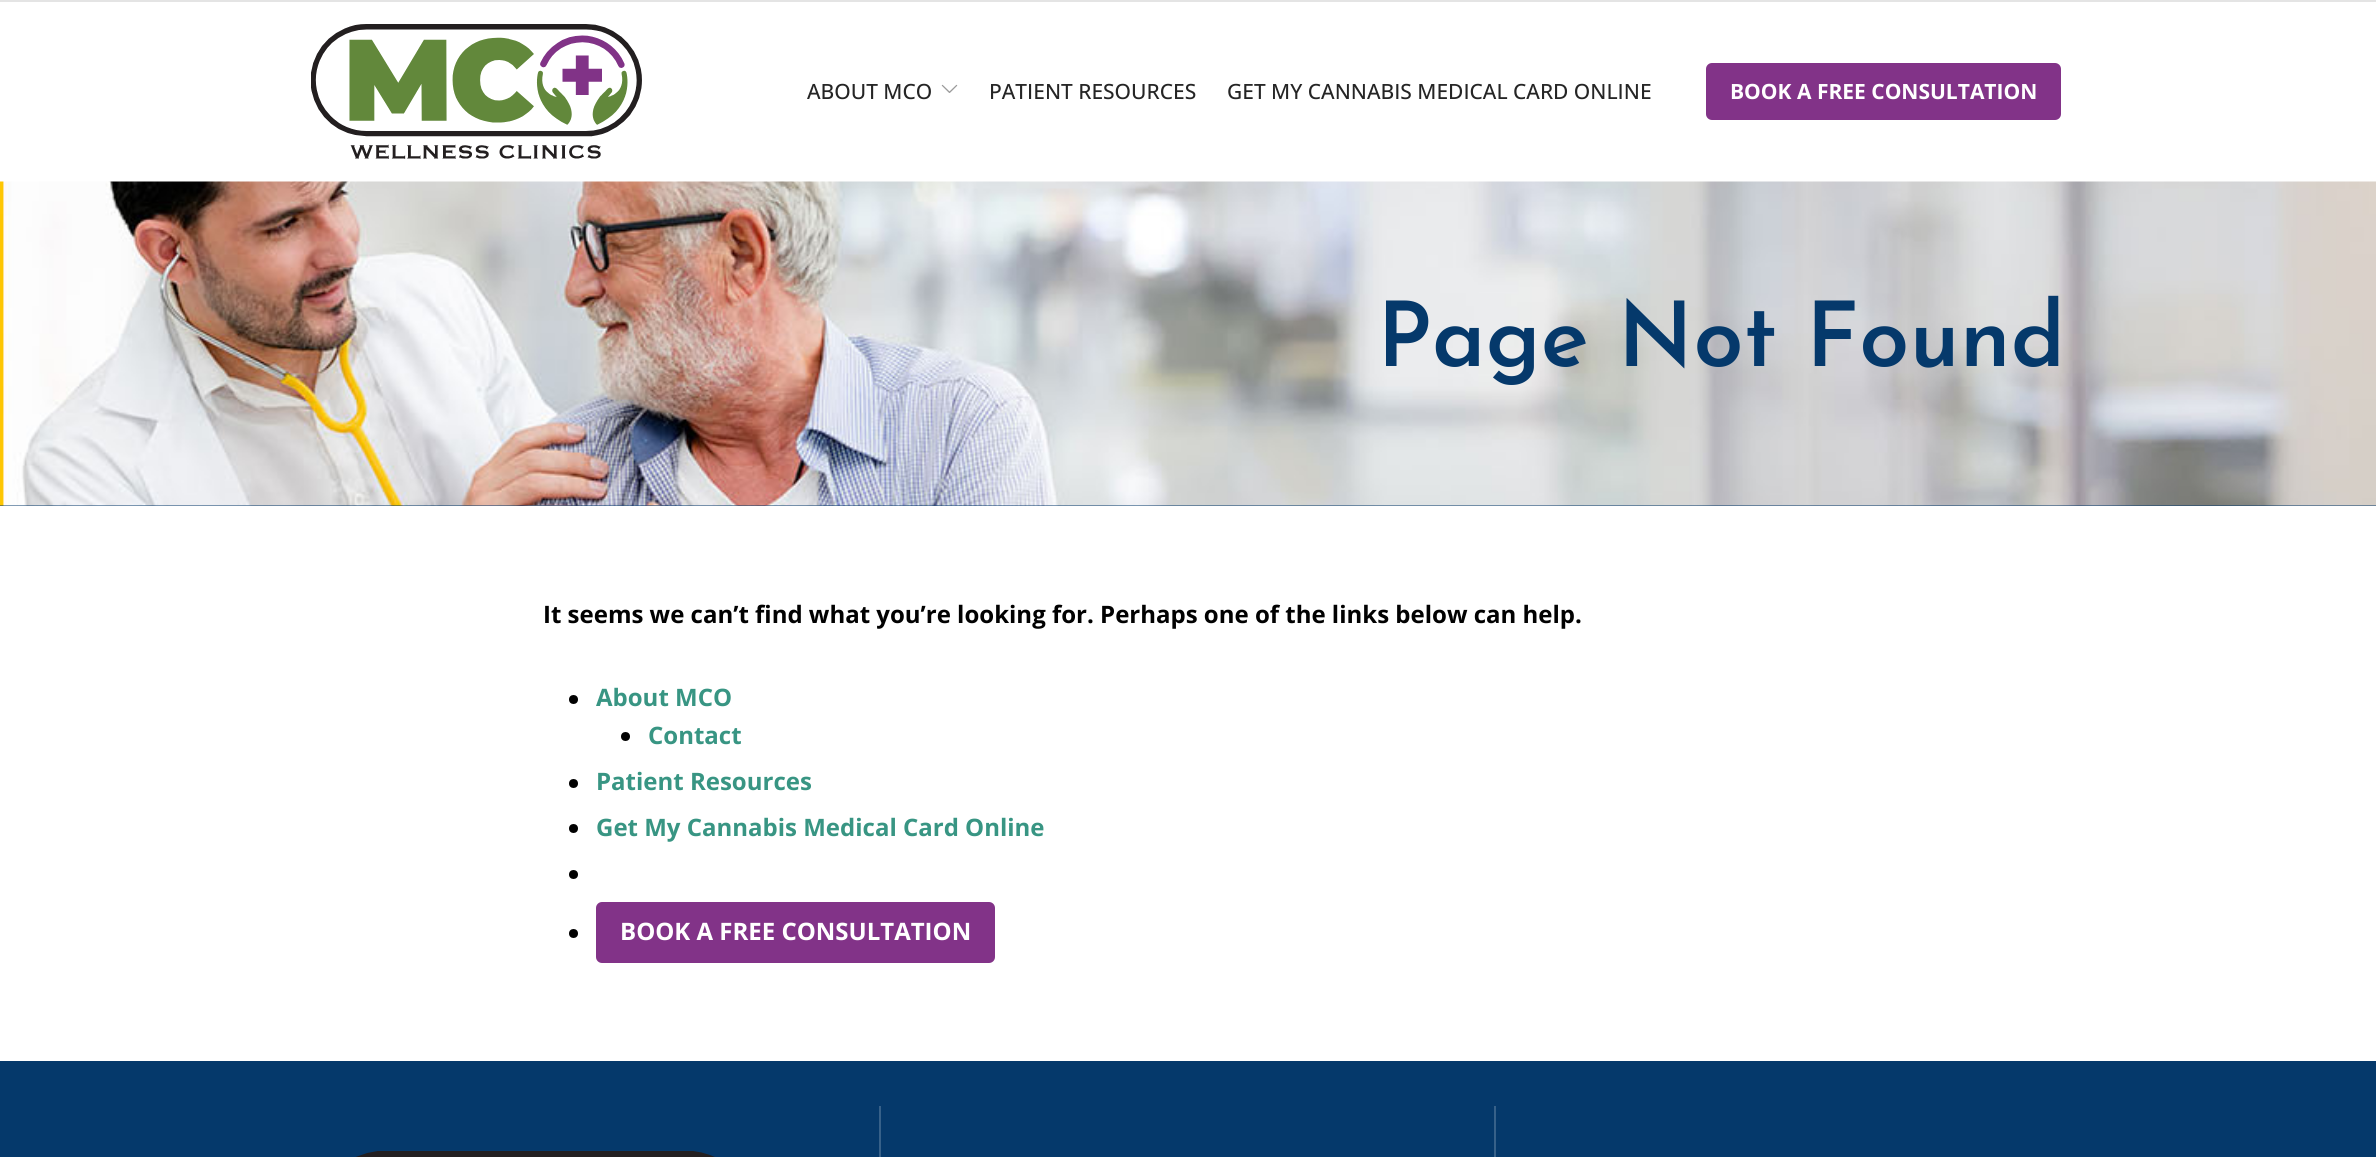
#include <cairo.h>
#include <math.h>
#include <stddef.h>


static void rgb(cairo_t *cr, int r, int g, int b)
{
	cairo_set_source_rgb(cr, r / 255.0, g / 255.0, b / 255.0);
}

static void face(cairo_t *cr, const char *family, double size, int italic, int bold)
{
	cairo_select_font_face(cr, family, italic ? CAIRO_FONT_SLANT_ITALIC : CAIRO_FONT_SLANT_NORMAL,
		bold ? CAIRO_FONT_WEIGHT_BOLD : CAIRO_FONT_WEIGHT_NORMAL);
	cairo_set_font_size(cr, size);
}

static void label(cairo_t *cr, double x, double y, const char *s)
{
	cairo_move_to(cr, x, y);
	cairo_show_text(cr, s);
}

static void rect(cairo_t *cr, double x, double y, double w, double h)
{
	cairo_rectangle(cr, x, y, w, h);
	cairo_fill(cr);
}

static void rrect(cairo_t *cr, double x, double y, double w, double h, double r)
{
	cairo_new_sub_path(cr);
	cairo_arc(cr, x + w - r, y + h - r, r, 0, M_PI / 2);
	cairo_arc(cr, x + r, y + h - r, r, M_PI / 2, M_PI);
	cairo_arc(cr, x + r, y + r, r, M_PI, 1.5 * M_PI);
	cairo_arc(cr, x + w - r, y + r, r, 1.5 * M_PI, 2 * M_PI);
	cairo_close_path(cr);
}

static void image(cairo_t *cr, const char *path, double x, double y, double w, double h)
{
	cairo_surface_t *image = cairo_image_surface_create_from_png(path);
	cairo_save(cr);
	cairo_set_source_surface(cr, image, x, y);
	cairo_rectangle(cr, x, y, w, h);
	cairo_fill(cr);
	cairo_restore(cr);
	cairo_surface_destroy(image);
}

static void draw(cairo_t *cr) {
	rgb(cr, 255, 255, 255);
	cairo_paint(cr);
	rgb(cr, 228, 228, 228);
	rect(cr, 0, 0, 2376, 2);
	image(cr, "image0.png", 311, 24, 331, 135);
	face(cr, "Open Sans Medium", 21, 0, 0);
	rgb(cr, 37, 37, 37);
	label(cr, 807, 99, "ABOUT MCO");
	image(cr, "image1.png", 941, 84, 17, 9);
	label(cr, 989, 99, "PATIENT RESOURCES");
	label(cr, 1227, 99, "GET MY CANNABIS MEDICAL CARD ONLINE");
	rgb(cr, 130, 51, 136);
	rrect(cr, 1706, 63, 355, 57, 6);
	cairo_fill(cr);
	face(cr, "Open Sans", 21, 0, 1);
	rgb(cr, 255, 255, 255);
	label(cr, 1730, 99, "BOOK A FREE CONSULTATION");
	rgb(cr, 5, 57, 107);
	rect(cr, 0, 505, 2376, 1);
	image(cr, "image2.png", 0, 181, 2376, 325);
	face(cr, "Josefin Sans SemiBold", 90, 0, 0);
	label(cr, 1377, 366, "Page Not Found");
	face(cr, "Open Sans", 24, 0, 1);
	rgb(cr, 1, 1, 1);
	label(cr, 543, 623, "It seems we can’t find what you’re looking for. Perhaps one of the links below can help.");
	cairo_new_path(cr);
	cairo_arc(cr, 573.5, 699.5, 4.5, 0, 2 * M_PI);
	cairo_fill(cr);
	rgb(cr, 56, 149, 131);
	label(cr, 596, 706, "About MCO");
	rgb(cr, 1, 1, 1);
	cairo_new_path(cr);
	cairo_arc(cr, 625.5, 736.5, 4.5, 0, 2 * M_PI);
	cairo_fill(cr);
	rgb(cr, 56, 149, 131);
	label(cr, 648, 744, "Contact");
	rgb(cr, 1, 1, 1);
	cairo_new_path(cr);
	cairo_arc(cr, 573.5, 783.5, 4.5, 0, 2 * M_PI);
	cairo_fill(cr);
	rgb(cr, 56, 149, 131);
	label(cr, 596, 790, "Patient Resources");
	rgb(cr, 1, 1, 1);
	cairo_new_path(cr);
	cairo_arc(cr, 573.5, 828.5, 4.5, 0, 2 * M_PI);
	cairo_fill(cr);
	rgb(cr, 56, 149, 131);
	label(cr, 596, 836, "Get My Cannabis Medical Card Online");
	rgb(cr, 1, 1, 1);
	cairo_new_path(cr);
	cairo_arc(cr, 573.5, 874.5, 4.5, 0, 2 * M_PI);
	cairo_fill(cr);
	cairo_arc(cr, 573.5, 933.5, 4.5, 0, 2 * M_PI);
	cairo_fill(cr);
	rgb(cr, 130, 51, 136);
	rrect(cr, 596, 902, 399, 61, 6);
	cairo_fill(cr);
	rgb(cr, 255, 255, 255);
	label(cr, 620, 940, "BOOK A FREE CONSULTATION");
	rgb(cr, 5, 57, 107);
	rect(cr, 0, 1061, 2376, 96);
	rgb(cr, 55, 97, 137);
	rect(cr, 879, 1106, 2, 51);
	image(cr, "image3.png", 356, 1151, 359, 6);
	rect(cr, 1494, 1106, 2, 51);
}

int main(void) {
	cairo_surface_t *surface = cairo_image_surface_create(CAIRO_FORMAT_RGB24, 2376, 1157);
	cairo_t *cr = cairo_create(surface);
	cairo_font_options_t *options = cairo_font_options_create();
	cairo_font_options_set_hint_metrics(options, CAIRO_HINT_METRICS_OFF);
	cairo_font_options_set_hint_style(options, CAIRO_HINT_STYLE_NONE);
	cairo_set_font_options(cr, options);
	cairo_set_miter_limit(cr, 4);
	draw(cr);
	cairo_surface_write_to_png(surface, "render.png");
	cairo_font_options_destroy(options);
	cairo_destroy(cr);
	cairo_surface_destroy(surface);
	return 0;
}
